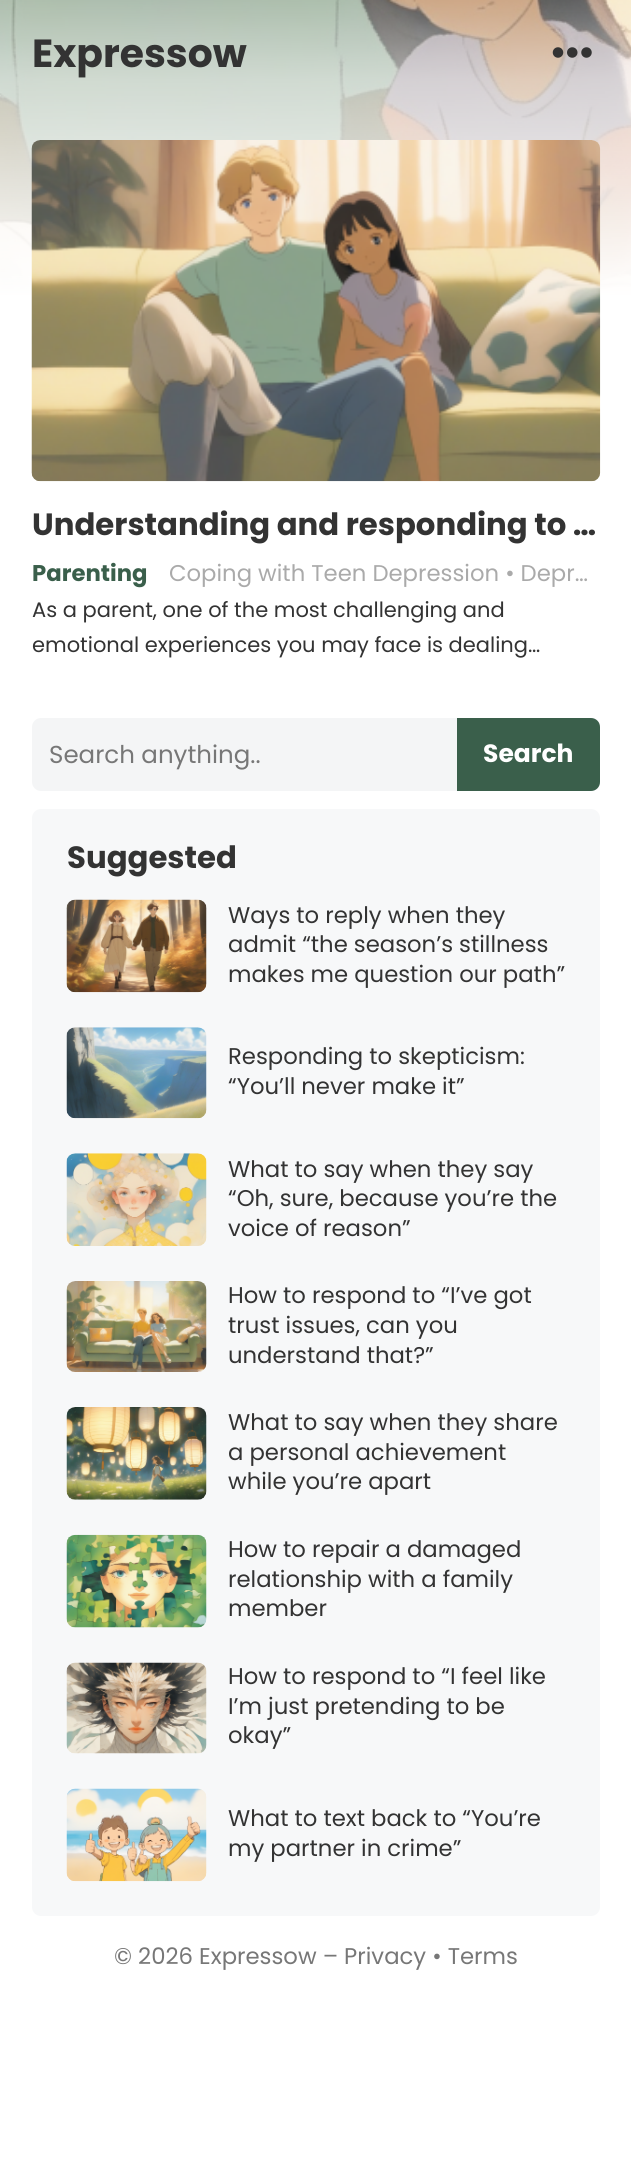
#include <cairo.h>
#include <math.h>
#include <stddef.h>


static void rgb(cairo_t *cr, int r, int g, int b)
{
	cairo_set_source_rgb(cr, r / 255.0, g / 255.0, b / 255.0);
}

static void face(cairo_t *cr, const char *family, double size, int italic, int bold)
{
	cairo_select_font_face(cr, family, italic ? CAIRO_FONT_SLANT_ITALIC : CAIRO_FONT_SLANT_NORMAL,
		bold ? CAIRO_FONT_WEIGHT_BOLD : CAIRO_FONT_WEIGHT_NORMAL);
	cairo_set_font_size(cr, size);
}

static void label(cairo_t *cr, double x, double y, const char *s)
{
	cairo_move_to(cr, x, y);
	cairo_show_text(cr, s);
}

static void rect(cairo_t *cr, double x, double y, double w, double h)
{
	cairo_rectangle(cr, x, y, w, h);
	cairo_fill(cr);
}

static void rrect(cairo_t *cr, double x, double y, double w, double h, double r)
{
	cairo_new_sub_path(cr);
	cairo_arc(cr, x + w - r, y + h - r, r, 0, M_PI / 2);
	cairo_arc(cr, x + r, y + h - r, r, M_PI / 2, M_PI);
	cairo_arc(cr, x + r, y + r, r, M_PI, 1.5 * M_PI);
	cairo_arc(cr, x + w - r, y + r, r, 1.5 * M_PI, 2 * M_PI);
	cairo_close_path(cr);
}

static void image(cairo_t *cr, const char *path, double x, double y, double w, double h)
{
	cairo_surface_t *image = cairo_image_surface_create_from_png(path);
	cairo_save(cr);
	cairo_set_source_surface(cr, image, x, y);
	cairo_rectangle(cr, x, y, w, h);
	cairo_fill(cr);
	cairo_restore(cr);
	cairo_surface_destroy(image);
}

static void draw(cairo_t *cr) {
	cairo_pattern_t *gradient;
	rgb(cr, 255, 255, 255);
	cairo_paint(cr);
	image(cr, "image0.png", 0, 0, 631, 295);
	gradient = cairo_pattern_create_linear(316, 0, 316, 1990);
	cairo_pattern_add_color_stop_rgba(gradient, 0, 1, 1, 1, 0.3);
	cairo_pattern_add_color_stop_rgba(gradient, 0.04, 1, 1, 1, 0.6);
	cairo_pattern_add_color_stop_rgba(gradient, 0.15, 1, 1, 1, 1);
	cairo_set_source(cr, gradient);
	cairo_pattern_destroy(gradient);
	rect(cr, 0, 0, 631, 295);
	face(cr, "Poppins", 39.25, 0, 1);
	rgb(cr, 51, 51, 51);
	label(cr, 32, 67, "Expressow");
	image(cr, "image1.png", 552, 47, 40, 11);
	image(cr, "image2.png", 31, 140, 570, 342);
	face(cr, "Poppins", 30.75, 0, 1);
	label(cr, 32, 535, "Understanding and responding to …");
	face(cr, "Poppins", 22.75, 0, 1);
	rgb(cr, 58, 95, 75);
	label(cr, 32, 581, "Parenting");
	face(cr, "Poppins", 22.75, 0, 0);
	rgb(cr, 170, 170, 170);
	label(cr, 169, 581, "Coping with Teen Depression • Depr…");
	face(cr, "Poppins", 21, 0, 0);
	rgb(cr, 51, 51, 51);
	label(cr, 32, 617, "As a parent, one of the most challenging and");
	label(cr, 32, 652, "emotional experiences you may face is dealing…");
	rgb(cr, 244, 245, 246);
	rrect(cr, 32, 718, 568, 73, 9);
	cairo_fill(cr);
	face(cr, "Poppins", 24.5, 0, 0);
	rgb(cr, 119, 119, 119);
	label(cr, 49, 763, "Search anything..");
	rgb(cr, 58, 95, 75);
	cairo_new_path(cr);
	cairo_move_to(cr, 457, 718);
	cairo_line_to(cr, 591, 718);
	cairo_curve_to(cr, 596, 718, 600, 722, 600, 727);
	cairo_line_to(cr, 600, 782);
	cairo_curve_to(cr, 600, 787, 596, 791, 591, 791);
	cairo_line_to(cr, 457, 791);
	cairo_close_path(cr);
	cairo_fill(cr);
	face(cr, "Poppins", 25, 0, 1);
	rgb(cr, 255, 255, 255);
	label(cr, 483, 762, "Search");
	rgb(cr, 247, 248, 249);
	rrect(cr, 32, 809, 568, 1107, 9);
	cairo_fill(cr);
	face(cr, "Poppins", 30.75, 0, 1);
	rgb(cr, 51, 51, 51);
	label(cr, 67, 868, "Suggested");
	image(cr, "image3.png", 66, 899, 141, 94);
	face(cr, "Poppins", 22.75, 0, 0);
	label(cr, 228, 923, "Ways to reply when they");
	label(cr, 228, 952, "admit “the season’s stillness");
	label(cr, 228, 982, "makes me question our path”");
	image(cr, "image4.png", 66, 1027, 141, 92);
	label(cr, 228, 1064, "Responding to skepticism:");
	label(cr, 228, 1094, "“You’ll never make it”");
	image(cr, "image5.png", 66, 1153, 141, 93);
	label(cr, 228, 1177, "What to say when they say");
	label(cr, 228, 1206, "“Oh, sure, because you’re the");
	label(cr, 228, 1236, "voice of reason”");
	image(cr, "image6.png", 66, 1281, 141, 91);
	label(cr, 228, 1303, "How to respond to “I’ve got");
	label(cr, 228, 1333, "trust issues, can you");
	label(cr, 228, 1363, "understand that?”");
	image(cr, "image7.png", 66, 1407, 141, 93);
	label(cr, 228, 1430, "What to say when they share");
	label(cr, 228, 1460, "a personal achievement");
	label(cr, 228, 1489, "while you’re apart");
	image(cr, "image8.png", 66, 1534, 141, 94);
	label(cr, 228, 1557, "How to repair a damaged");
	label(cr, 228, 1587, "relationship with a family");
	label(cr, 228, 1616, "member");
	image(cr, "image9.png", 66, 1662, 141, 92);
	label(cr, 228, 1684, "How to respond to “I feel like");
	label(cr, 228, 1714, "I’m just pretending to be");
	label(cr, 228, 1743, "okay”");
	image(cr, "image10.png", 66, 1788, 141, 94);
	label(cr, 228, 1826, "What to text back to “You’re");
	label(cr, 228, 1856, "my partner in crime”");
	rgb(cr, 119, 119, 119);
	label(cr, 114, 1964, "© 2026 Expressow – Privacy • Terms");
}

int main(void) {
	cairo_surface_t *surface = cairo_image_surface_create(CAIRO_FORMAT_RGB24, 631, 2184);
	cairo_t *cr = cairo_create(surface);
	cairo_font_options_t *options = cairo_font_options_create();
	cairo_font_options_set_hint_metrics(options, CAIRO_HINT_METRICS_OFF);
	cairo_font_options_set_hint_style(options, CAIRO_HINT_STYLE_NONE);
	cairo_set_font_options(cr, options);
	cairo_set_miter_limit(cr, 4);
	draw(cr);
	cairo_surface_write_to_png(surface, "render.png");
	cairo_font_options_destroy(options);
	cairo_destroy(cr);
	cairo_surface_destroy(surface);
	return 0;
}
